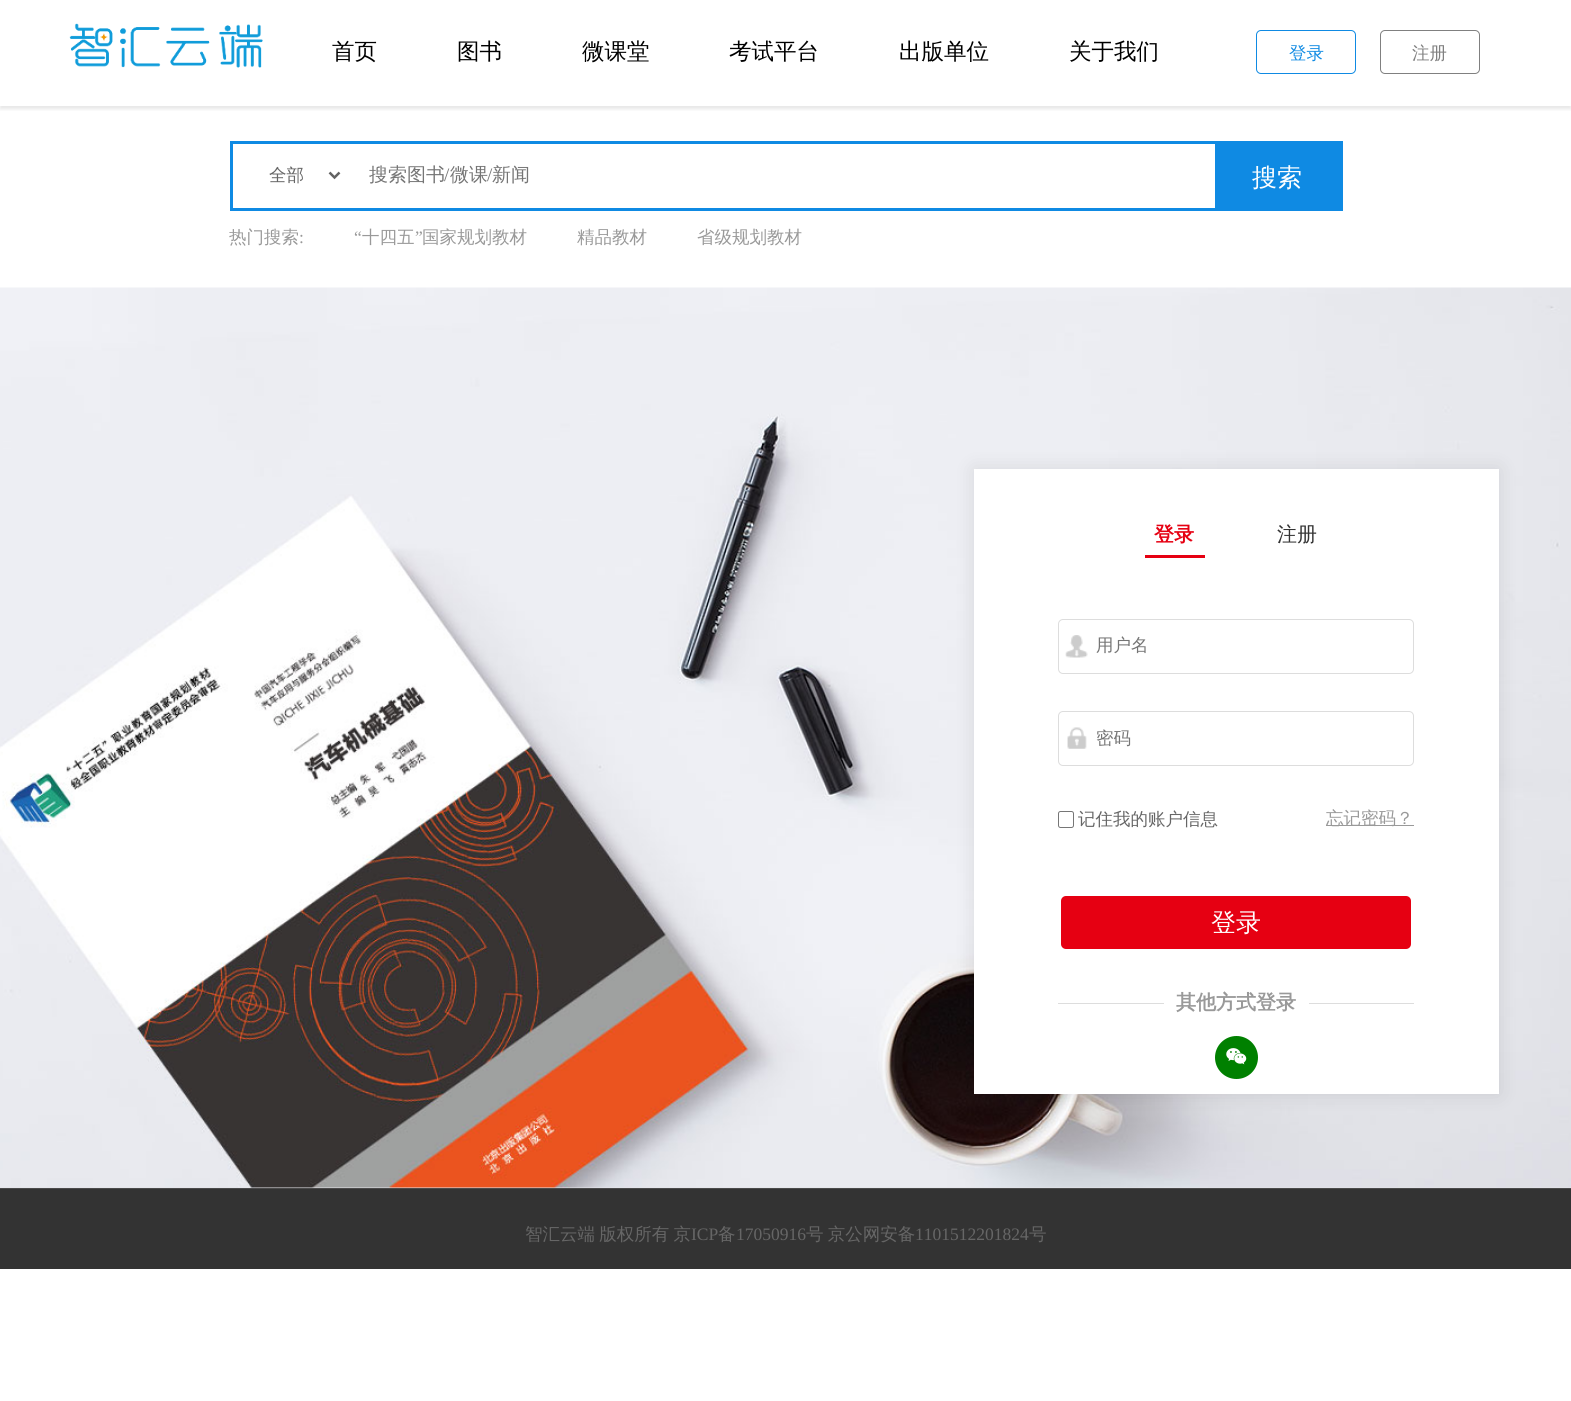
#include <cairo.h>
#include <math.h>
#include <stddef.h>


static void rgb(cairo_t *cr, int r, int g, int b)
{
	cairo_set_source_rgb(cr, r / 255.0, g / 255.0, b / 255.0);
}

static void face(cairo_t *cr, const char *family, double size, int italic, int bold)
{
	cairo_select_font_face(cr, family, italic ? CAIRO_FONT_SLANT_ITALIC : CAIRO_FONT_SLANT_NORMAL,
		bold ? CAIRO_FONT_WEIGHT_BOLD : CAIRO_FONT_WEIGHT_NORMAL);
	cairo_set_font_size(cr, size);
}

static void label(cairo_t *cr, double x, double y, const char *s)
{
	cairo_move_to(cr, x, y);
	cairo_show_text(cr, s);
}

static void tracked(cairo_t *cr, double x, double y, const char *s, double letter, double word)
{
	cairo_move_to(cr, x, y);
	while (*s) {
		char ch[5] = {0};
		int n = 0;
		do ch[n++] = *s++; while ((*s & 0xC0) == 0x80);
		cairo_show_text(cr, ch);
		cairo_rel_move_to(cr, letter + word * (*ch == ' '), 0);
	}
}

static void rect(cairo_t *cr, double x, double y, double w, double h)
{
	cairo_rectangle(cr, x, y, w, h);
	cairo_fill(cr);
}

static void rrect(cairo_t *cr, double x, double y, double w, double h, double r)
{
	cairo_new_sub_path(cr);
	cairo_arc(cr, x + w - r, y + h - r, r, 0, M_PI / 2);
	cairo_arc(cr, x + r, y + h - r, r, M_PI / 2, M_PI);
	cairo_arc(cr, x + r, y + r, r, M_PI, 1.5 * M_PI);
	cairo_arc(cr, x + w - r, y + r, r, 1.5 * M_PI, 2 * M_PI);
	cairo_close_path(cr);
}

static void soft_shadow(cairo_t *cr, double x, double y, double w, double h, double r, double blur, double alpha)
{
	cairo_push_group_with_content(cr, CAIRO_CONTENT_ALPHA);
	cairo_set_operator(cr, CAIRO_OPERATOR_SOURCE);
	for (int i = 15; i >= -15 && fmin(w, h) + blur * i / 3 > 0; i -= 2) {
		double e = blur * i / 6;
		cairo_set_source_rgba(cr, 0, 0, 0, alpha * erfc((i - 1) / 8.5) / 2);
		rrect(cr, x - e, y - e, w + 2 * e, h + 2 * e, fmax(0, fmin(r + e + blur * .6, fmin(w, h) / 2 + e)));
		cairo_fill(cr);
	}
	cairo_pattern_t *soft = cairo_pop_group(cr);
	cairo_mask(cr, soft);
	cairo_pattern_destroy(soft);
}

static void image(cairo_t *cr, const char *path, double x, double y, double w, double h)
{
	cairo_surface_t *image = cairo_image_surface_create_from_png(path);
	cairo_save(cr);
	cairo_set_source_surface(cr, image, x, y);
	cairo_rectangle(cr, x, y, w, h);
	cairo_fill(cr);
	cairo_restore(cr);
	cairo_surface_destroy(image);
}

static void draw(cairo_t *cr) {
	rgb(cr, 255, 255, 255);
	cairo_paint(cr);
	cairo_save(cr);
	cairo_rectangle(cr, 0, 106, 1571, 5);
	cairo_clip(cr);
	rgb(cr, 0, 0, 0);
	soft_shadow(cr, 0, 3, 1571, 106, 0, 2, 0.1);
	cairo_restore(cr);
	image(cr, "image0.png", 69, 23, 194, 45);
	face(cr, "WenQuanYi Zen Hei Medium", 22.5, 0, 0);
	rgb(cr, 0, 0, 0);
	label(cr, 332, 59, "首页");
	label(cr, 457, 59, "图书");
	label(cr, 582, 59, "微课堂");
	label(cr, 729, 59, "考试平台");
	label(cr, 899, 59, "出版单位");
	label(cr, 1069, 59, "关于我们");
	rrect(cr, 1256.5, 30.5, 99, 43, 4.5);
	rgb(cr, 15, 138, 227);
	cairo_set_line_width(cr, 1);
	cairo_stroke(cr);
	face(cr, "WenQuanYi Zen Hei Medium", 17.5, 0, 0);
	label(cr, 1289, 59, "登录");
	rrect(cr, 1380.5, 30.5, 99, 43, 4.5);
	rgb(cr, 128, 128, 128);
	cairo_stroke(cr);
	label(cr, 1412, 59, "注册");
	cairo_rectangle(cr, 231.5, 142.5, 1110, 67);
	rgb(cr, 15, 138, 227);
	cairo_set_line_width(cr, 3);
	cairo_stroke(cr);
	cairo_new_path(cr);
	cairo_move_to(cr, 329.5, 172.5);
	cairo_line_to(cr, 334.5, 177.5);
	cairo_line_to(cr, 339.5, 172.5);
	rgb(cr, 98, 98, 98);
	cairo_set_line_width(cr, 2.5);
	cairo_stroke(cr);
	rgb(cr, 102, 102, 102);
	label(cr, 269, 181, "全部");
	face(cr, "WenQuanYi Zen Hei Medium", 19, 0, 0);
	rgb(cr, 117, 117, 117);
	label(cr, 369, 181, "搜索图书");
	face(cr, "Liberation Serif", 19, 0, 0);
	label(cr, 444, 181, "/");
	face(cr, "WenQuanYi Zen Hei Medium", 19, 0, 0);
	label(cr, 450, 181, "微课");
	face(cr, "Liberation Serif", 19, 0, 0);
	label(cr, 487, 181, "/");
	face(cr, "WenQuanYi Zen Hei Medium", 19, 0, 0);
	label(cr, 492, 181, "新闻");
	rgb(cr, 15, 138, 227);
	rect(cr, 1215, 144, 125, 64);
	face(cr, "WenQuanYi Zen Hei Medium", 25, 0, 0);
	rgb(cr, 255, 255, 255);
	label(cr, 1252, 186, "搜索");
	face(cr, "WenQuanYi Zen Hei Medium", 17.5, 0, 0);
	rgb(cr, 153, 153, 153);
	label(cr, 229, 243, "热门搜索");
	face(cr, "Liberation Serif", 17.5, 0, 0);
	label(cr, 299, 243, ":");
	label(cr, 354, 243, "“");
	face(cr, "WenQuanYi Zen Hei Medium", 17.5, 0, 0);
	label(cr, 362, 243, "十四五");
	face(cr, "Liberation Serif", 17.5, 0, 0);
	label(cr, 415, 243, "”");
	face(cr, "WenQuanYi Zen Hei Medium", 17.5, 0, 0);
	label(cr, 422, 243, "国家规划教材");
	label(cr, 577, 243, "精品教材");
	label(cr, 697, 243, "省级规划教材");
	rgb(cr, 228, 229, 234);
	rect(cr, 0, 1187, 1571, 1);
	image(cr, "image1.png", 0, 287, 1571, 901);
	rgb(cr, 0, 0, 0);
	soft_shadow(cr, 974, 469, 525, 625, 0, 9.5, 0.1);
	rgb(cr, 255, 255, 255);
	rect(cr, 974, 469, 525, 625);
	face(cr, "WenQuanYi Zen Hei", 20, 0, 1);
	rgb(cr, 230, 0, 18);
	label(cr, 1154, 541, "登录");
	rect(cr, 1145, 555, 60, 3);
	face(cr, "WenQuanYi Zen Hei Medium", 20, 0, 0);
	rgb(cr, 51, 51, 51);
	label(cr, 1277, 541, "注册");
	rrect(cr, 1058.5, 619.5, 355, 54, 4.5);
	rgb(cr, 221, 221, 221);
	cairo_set_line_width(cr, 1);
	cairo_stroke(cr);
	image(cr, "image2.png", 1065, 635, 23, 23);
	face(cr, "WenQuanYi Zen Hei Medium", 17.5, 0, 0);
	rgb(cr, 117, 117, 117);
	label(cr, 1096, 651, "用户名");
	rrect(cr, 1058.5, 711.5, 355, 54, 4.5);
	rgb(cr, 221, 221, 221);
	cairo_stroke(cr);
	image(cr, "image3.png", 1067, 727, 20, 22);
	rgb(cr, 117, 117, 117);
	label(cr, 1096, 744, "密码");
	rrect(cr, 1058.5, 811.5, 15, 16, 2);
	rgb(cr, 118, 118, 118);
	cairo_stroke(cr);
	rgb(cr, 102, 102, 102);
	label(cr, 1078, 825, "记住我的账户信息");
	rgb(cr, 153, 153, 153);
	rect(cr, 1326, 825, 88, 1);
	label(cr, 1326, 824, "忘记密码？");
	rgb(cr, 230, 0, 18);
	rrect(cr, 1061, 896, 350, 53, 5);
	cairo_fill(cr);
	face(cr, "WenQuanYi Zen Hei Medium", 25, 0, 0);
	rgb(cr, 255, 255, 255);
	label(cr, 1211, 931, "登录");
	rgb(cr, 221, 221, 221);
	rect(cr, 1058, 1003, 356, 1);
	rgb(cr, 255, 255, 255);
	rect(cr, 1164, 1003, 145, 1);
	face(cr, "WenQuanYi Zen Hei", 20, 0, 1);
	rgb(cr, 153, 153, 153);
	label(cr, 1176, 1009, "其他方式登录");
	rgb(cr, 0, 128, 0);
	cairo_new_path(cr);
	cairo_arc(cr, 1236.5, 1057.5, 21.5, 0, 2 * M_PI);
	cairo_fill(cr);
	image(cr, "image4.png", 1226, 1048, 21, 17);
	rgb(cr, 51, 51, 51);
	rect(cr, 0, 1189, 1571, 80);
	rgb(cr, 75, 75, 75);
	rect(cr, 0, 1188, 1571, 1);
	face(cr, "WenQuanYi Zen Hei Medium", 17.5, 0, 0);
	rgb(cr, 102, 102, 102);
	tracked(cr, 525, 1240, "智汇云端 版权所有 京", 0, -1);
	face(cr, "Liberation Serif", 17.5, 0, 0);
	label(cr, 691, 1240, "ICP");
	face(cr, "WenQuanYi Zen Hei Medium", 17.5, 0, 0);
	label(cr, 718, 1240, "备");
	face(cr, "Liberation Serif", 17.5, 0, 0);
	label(cr, 736, 1240, "17050916");
	face(cr, "WenQuanYi Zen Hei Medium", 17.5, 0, 0);
	tracked(cr, 806, 1240, "号 京公网安备", 0, -1);
	face(cr, "Liberation Serif", 17.5, 0, 0);
	label(cr, 915, 1240, "1101512201824");
	face(cr, "WenQuanYi Zen Hei Medium", 17.5, 0, 0);
	label(cr, 1029, 1240, "号");
}

int main(void) {
	cairo_surface_t *surface = cairo_image_surface_create(CAIRO_FORMAT_RGB24, 1571, 1401);
	cairo_t *cr = cairo_create(surface);
	cairo_font_options_t *options = cairo_font_options_create();
	cairo_font_options_set_hint_metrics(options, CAIRO_HINT_METRICS_OFF);
	cairo_font_options_set_hint_style(options, CAIRO_HINT_STYLE_NONE);
	cairo_set_font_options(cr, options);
	cairo_set_miter_limit(cr, 4);
	draw(cr);
	cairo_surface_write_to_png(surface, "render.png");
	cairo_font_options_destroy(options);
	cairo_destroy(cr);
	cairo_surface_destroy(surface);
	return 0;
}
